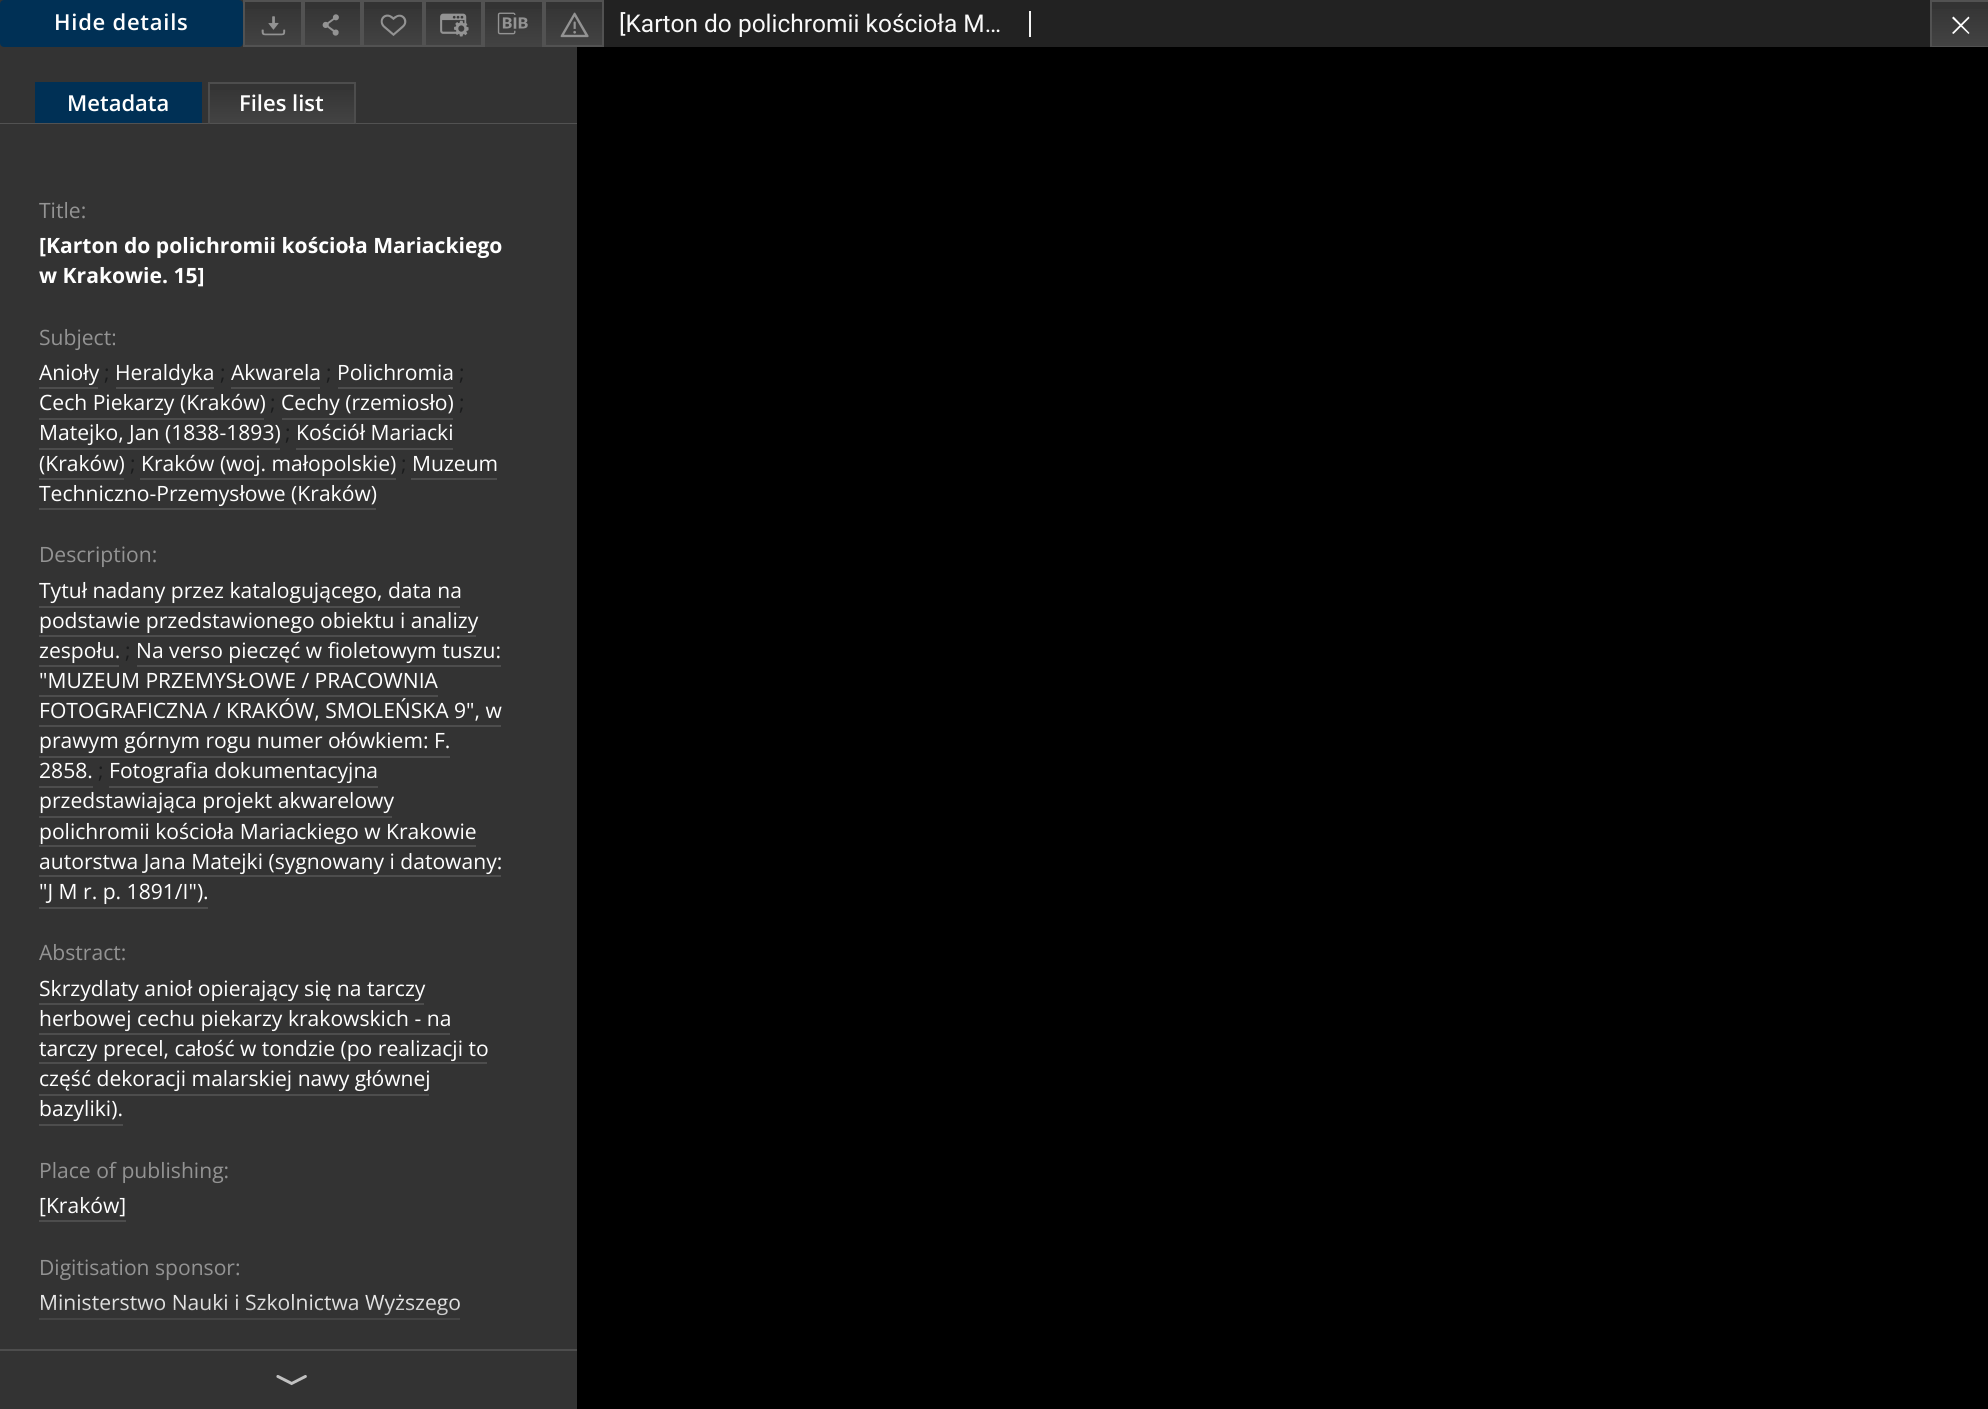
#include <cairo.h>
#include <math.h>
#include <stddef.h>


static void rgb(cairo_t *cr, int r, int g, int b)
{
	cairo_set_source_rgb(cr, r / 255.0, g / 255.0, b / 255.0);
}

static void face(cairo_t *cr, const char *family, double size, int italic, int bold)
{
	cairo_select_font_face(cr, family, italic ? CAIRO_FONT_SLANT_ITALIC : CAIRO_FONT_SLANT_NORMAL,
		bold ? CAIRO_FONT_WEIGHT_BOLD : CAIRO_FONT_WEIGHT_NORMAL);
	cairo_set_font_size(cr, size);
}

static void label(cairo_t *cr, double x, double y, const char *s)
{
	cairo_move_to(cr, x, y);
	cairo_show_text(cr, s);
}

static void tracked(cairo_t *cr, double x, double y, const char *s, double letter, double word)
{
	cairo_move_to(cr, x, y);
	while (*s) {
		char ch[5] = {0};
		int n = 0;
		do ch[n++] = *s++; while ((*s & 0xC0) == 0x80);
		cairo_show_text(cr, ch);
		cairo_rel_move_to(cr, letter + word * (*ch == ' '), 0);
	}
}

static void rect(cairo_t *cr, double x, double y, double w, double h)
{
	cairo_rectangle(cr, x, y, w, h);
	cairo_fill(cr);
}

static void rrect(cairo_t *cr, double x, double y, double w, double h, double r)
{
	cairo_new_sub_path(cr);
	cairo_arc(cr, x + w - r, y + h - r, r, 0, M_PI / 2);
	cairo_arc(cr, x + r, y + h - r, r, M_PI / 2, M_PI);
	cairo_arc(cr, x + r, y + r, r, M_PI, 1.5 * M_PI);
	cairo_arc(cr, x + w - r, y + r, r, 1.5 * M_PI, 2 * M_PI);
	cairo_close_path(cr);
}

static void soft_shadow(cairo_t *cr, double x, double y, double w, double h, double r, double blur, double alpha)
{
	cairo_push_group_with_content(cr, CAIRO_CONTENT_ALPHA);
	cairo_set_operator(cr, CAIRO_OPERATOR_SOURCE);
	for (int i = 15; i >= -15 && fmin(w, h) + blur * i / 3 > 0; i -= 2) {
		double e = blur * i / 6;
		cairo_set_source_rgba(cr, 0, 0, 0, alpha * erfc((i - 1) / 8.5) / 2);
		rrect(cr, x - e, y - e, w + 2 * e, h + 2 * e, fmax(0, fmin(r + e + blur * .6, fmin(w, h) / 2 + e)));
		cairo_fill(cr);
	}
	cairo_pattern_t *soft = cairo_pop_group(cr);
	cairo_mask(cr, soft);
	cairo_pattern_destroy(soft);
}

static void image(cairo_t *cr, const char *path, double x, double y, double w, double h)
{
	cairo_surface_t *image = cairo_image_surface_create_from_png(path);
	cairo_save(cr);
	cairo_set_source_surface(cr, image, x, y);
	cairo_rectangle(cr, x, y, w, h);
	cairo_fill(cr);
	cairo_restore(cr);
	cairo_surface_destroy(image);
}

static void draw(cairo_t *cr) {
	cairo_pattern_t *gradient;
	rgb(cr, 51, 51, 51);
	cairo_paint(cr);
	rgb(cr, 0, 48, 85);
	rrect(cr, 1, 1, 241, 45, 3);
	cairo_fill_preserve(cr);
	cairo_stroke(cr);
	face(cr, "Open Sans SemiBold", 22, 0, 0);
	rgb(cr, 255, 255, 255);
	tracked(cr, 54, 30, "Hide details", 0.75, 0);
	gradient = cairo_pattern_create_linear(273, 1.7, 273, 46);
	cairo_pattern_add_color_stop_rgba(gradient, 0, 0.2, 0.2, 0.2, 1);
	cairo_pattern_add_color_stop_rgba(gradient, 1, 0.263, 0.263, 0.263, 1);
	cairo_set_source(cr, gradient);
	cairo_pattern_destroy(gradient);
	rect(cr, 245, 9, 56, 36);
	cairo_rectangle(cr, 244, 1, 58, 45);
	rgb(cr, 82, 82, 82);
	cairo_stroke(cr);
	image(cr, "image0.png", 261, 16, 25, 20);
	gradient = cairo_pattern_create_linear(333, 1.7, 333, 46);
	cairo_pattern_add_color_stop_rgba(gradient, 0, 0.2, 0.2, 0.2, 1);
	cairo_pattern_add_color_stop_rgba(gradient, 1, 0.263, 0.263, 0.263, 1);
	cairo_set_source(cr, gradient);
	cairo_pattern_destroy(gradient);
	rect(cr, 305, 9, 55, 36);
	cairo_rectangle(cr, 304, 1, 57, 45);
	rgb(cr, 82, 82, 82);
	cairo_stroke(cr);
	image(cr, "image1.png", 322, 14, 17, 22);
	gradient = cairo_pattern_create_linear(393, 1.7, 393, 46);
	cairo_pattern_add_color_stop_rgba(gradient, 0, 0.2, 0.2, 0.2, 1);
	cairo_pattern_add_color_stop_rgba(gradient, 1, 0.263, 0.263, 0.263, 1);
	cairo_set_source(cr, gradient);
	cairo_pattern_destroy(gradient);
	rect(cr, 364, 9, 58, 36);
	cairo_rectangle(cr, 363, 1, 60, 45);
	rgb(cr, 82, 82, 82);
	cairo_stroke(cr);
	image(cr, "image2.png", 380, 14, 27, 22);
	gradient = cairo_pattern_create_linear(453, 1.7, 453, 46);
	cairo_pattern_add_color_stop_rgba(gradient, 0, 0.2, 0.2, 0.2, 1);
	cairo_pattern_add_color_stop_rgba(gradient, 1, 0.263, 0.263, 0.263, 1);
	cairo_set_source(cr, gradient);
	cairo_pattern_destroy(gradient);
	rect(cr, 426, 9, 55, 36);
	cairo_rectangle(cr, 425, 1, 57, 45);
	rgb(cr, 82, 82, 82);
	cairo_stroke(cr);
	image(cr, "image3.png", 440, 13, 29, 24);
	gradient = cairo_pattern_create_linear(514, 1.7, 514, 47);
	cairo_pattern_add_color_stop_rgba(gradient, 0, 0.2, 0.2, 0.2, 1);
	cairo_pattern_add_color_stop_rgba(gradient, 1, 0.263, 0.263, 0.263, 1);
	cairo_set_source(cr, gradient);
	cairo_pattern_destroy(gradient);
	rect(cr, 485, 9, 57, 38);
	cairo_rectangle(cr, 484, 1, 59, 47);
	rgb(cr, 82, 82, 82);
	cairo_stroke(cr);
	image(cr, "image4.png", 497, 12, 31, 23);
	gradient = cairo_pattern_create_linear(574, 1.7, 574, 46);
	cairo_pattern_add_color_stop_rgba(gradient, 0, 0.2, 0.2, 0.2, 1);
	cairo_pattern_add_color_stop_rgba(gradient, 1, 0.263, 0.263, 0.263, 1);
	cairo_set_source(cr, gradient);
	cairo_pattern_destroy(gradient);
	rect(cr, 546, 9, 56, 36);
	cairo_rectangle(cr, 545, 1, 58, 45);
	rgb(cr, 82, 82, 82);
	cairo_stroke(cr);
	image(cr, "image5.png", 560, 12, 29, 26);
	rgb(cr, 34, 34, 34);
	rect(cr, 604, 0, 1326, 47);
	rgb(cr, 245, 245, 245);
	rect(cr, 1029, 11, 2, 26);
	face(cr, "Roboto", 24.5, 0, 0);
	rgb(cr, 249, 249, 249);
	label(cr, 619, 32, "[Karton do polichromii kościoła M…");
	gradient = cairo_pattern_create_linear(1960, 1.7, 1960, 46);
	cairo_pattern_add_color_stop_rgba(gradient, 0, 0.2, 0.2, 0.2, 1);
	cairo_pattern_add_color_stop_rgba(gradient, 1, 0.263, 0.263, 0.263, 1);
	cairo_set_source(cr, gradient);
	cairo_pattern_destroy(gradient);
	rect(cr, 1932, 9, 56, 37);
	rgb(cr, 82, 82, 82);
	rect(cr, 1930, 0, 58, 2);
	rect(cr, 1930, 46, 58, 1);
	rect(cr, 1930, 0, 2, 47);
	rgb(cr, 255, 255, 255);
	cairo_new_path(cr);
	cairo_move_to(cr, 1952, 33);
	cairo_line_to(cr, 1968.5, 16.5);
	cairo_line_to(cr, 1969.5, 18);
	cairo_line_to(cr, 1953.5, 34);
	cairo_close_path(cr);
	cairo_fill(cr);
	cairo_new_path(cr);
	cairo_move_to(cr, 1953.5, 16.5);
	cairo_line_to(cr, 1969.5, 33);
	cairo_line_to(cr, 1968.5, 34);
	cairo_line_to(cr, 1952, 18);
	cairo_close_path(cr);
	cairo_fill(cr);
	rgb(cr, 51, 51, 51);
	rect(cr, 483, 47, 61, 2);
	rgb(cr, 82, 82, 82);
	rect(cr, 0, 123, 578, 1);
	rgb(cr, 0, 48, 85);
	rect(cr, 35, 82, 167, 41);
	face(cr, "Open Sans SemiBold", 22, 0, 0);
	rgb(cr, 255, 255, 255);
	label(cr, 67, 111, "Metadata");
	gradient = cairo_pattern_create_linear(282, 84, 282, 123);
	cairo_pattern_add_color_stop_rgba(gradient, 0, 0.2, 0.2, 0.2, 1);
	cairo_pattern_add_color_stop_rgba(gradient, 1, 0.263, 0.263, 0.263, 1);
	cairo_set_source(cr, gradient);
	cairo_pattern_destroy(gradient);
	rect(cr, 210, 90, 144, 33);
	rgb(cr, 77, 77, 77);
	rect(cr, 208, 82, 147, 2);
	rect(cr, 354, 82, 2, 42);
	rgb(cr, 82, 82, 82);
	rect(cr, 354, 123, 1, 1);
	rgb(cr, 77, 77, 77);
	rect(cr, 208, 82, 2, 42);
	rgb(cr, 255, 255, 255);
	label(cr, 239, 111, "Files list");
	face(cr, "Open Sans", 21.1, 0, 0);
	rgb(cr, 147, 147, 147);
	label(cr, 39, 218, "Title:");
	face(cr, "Open Sans", 21.1, 0, 1);
	rgb(cr, 255, 255, 255);
	label(cr, 39, 253, "[Karton do polichromii kościoła Mariackiego");
	label(cr, 39, 283, "w Krakowie. 15]");
	face(cr, "Open Sans", 21.1, 0, 0);
	rgb(cr, 147, 147, 147);
	label(cr, 39, 345, "Subject:");
	rgb(cr, 255, 255, 255);
	label(cr, 39, 380, "Anioły");
	rgb(cr, 77, 77, 77);
	rect(cr, 39, 387, 59, 2);
	rgb(cr, 26, 27, 28);
	label(cr, 104, 380, ";");
	rgb(cr, 255, 255, 255);
	label(cr, 115, 380, "Heraldyka");
	rgb(cr, 77, 77, 77);
	rect(cr, 116, 387, 98, 2);
	rgb(cr, 26, 27, 28);
	label(cr, 220, 380, ";");
	rgb(cr, 255, 255, 255);
	label(cr, 231, 380, "Akwarela");
	rgb(cr, 77, 77, 77);
	rect(cr, 231, 387, 89, 2);
	rgb(cr, 26, 27, 28);
	label(cr, 326, 380, ";");
	rgb(cr, 255, 255, 255);
	label(cr, 337, 380, "Polichromia");
	rgb(cr, 77, 77, 77);
	rect(cr, 338, 387, 115, 2);
	rgb(cr, 26, 27, 28);
	label(cr, 459, 380, ";");
	rgb(cr, 255, 255, 255);
	label(cr, 39, 410, "Cech Piekarzy (Kraków)");
	rgb(cr, 77, 77, 77);
	rect(cr, 39, 418, 225, 2);
	rgb(cr, 26, 27, 28);
	label(cr, 270, 410, ";");
	rgb(cr, 255, 255, 255);
	label(cr, 281, 410, "Cechy (rzemiosło)");
	rgb(cr, 77, 77, 77);
	rect(cr, 282, 418, 171, 2);
	rgb(cr, 26, 27, 28);
	label(cr, 459, 410, ";");
	rgb(cr, 255, 255, 255);
	label(cr, 39, 440, "Matejko, Jan (1838-1893)");
	rgb(cr, 77, 77, 77);
	rect(cr, 39, 448, 241, 2);
	rgb(cr, 26, 27, 28);
	label(cr, 285, 440, ";");
	rgb(cr, 255, 255, 255);
	label(cr, 296, 440, "Kościół Mariacki");
	rgb(cr, 77, 77, 77);
	rect(cr, 296, 448, 157, 2);
	rgb(cr, 255, 255, 255);
	label(cr, 39, 471, "(Kraków)");
	rgb(cr, 77, 77, 77);
	rect(cr, 39, 478, 85, 2);
	rgb(cr, 26, 27, 28);
	label(cr, 130, 471, ";");
	rgb(cr, 255, 255, 255);
	label(cr, 141, 471, "Kraków (woj. małopolskie)");
	rgb(cr, 77, 77, 77);
	rect(cr, 140, 478, 256, 2);
	rgb(cr, 26, 27, 28);
	label(cr, 401, 471, ";");
	rgb(cr, 255, 255, 255);
	label(cr, 412, 471, "Muzeum");
	rgb(cr, 77, 77, 77);
	rect(cr, 411, 478, 86, 2);
	rgb(cr, 255, 255, 255);
	label(cr, 39, 501, "Techniczno-Przemysłowe (Kraków)");
	rgb(cr, 77, 77, 77);
	rect(cr, 39, 508, 337, 2);
	rgb(cr, 147, 147, 147);
	label(cr, 39, 562, "Description:");
	rgb(cr, 255, 255, 255);
	label(cr, 39, 598, "Tytuł nadany przez katalogującego, data na");
	rgb(cr, 77, 77, 77);
	rect(cr, 39, 606, 421, 2);
	rgb(cr, 255, 255, 255);
	label(cr, 39, 628, "podstawie przedstawionego obiektu i analizy");
	rgb(cr, 77, 77, 77);
	rect(cr, 39, 635, 437, 2);
	rgb(cr, 255, 255, 255);
	label(cr, 39, 658, "zespołu.");
	rgb(cr, 77, 77, 77);
	rect(cr, 39, 665, 80, 2);
	rgb(cr, 26, 27, 28);
	label(cr, 125, 658, ";");
	rgb(cr, 255, 255, 255);
	label(cr, 136, 658, "Na verso pieczęć w fioletowym tuszu:");
	rgb(cr, 77, 77, 77);
	rect(cr, 137, 665, 364, 2);
	rgb(cr, 255, 255, 255);
	label(cr, 39, 688, "\"MUZEUM PRZEMYSŁOWE / PRACOWNIA");
	label(cr, 39, 718, "FOTOGRAFICZNA / KRAKÓW, SMOLEŃSKA 9\", w");
	rgb(cr, 77, 77, 77);
	rect(cr, 39, 695, 399, 2);
	rect(cr, 39, 725, 462, 2);
	rgb(cr, 255, 255, 255);
	label(cr, 39, 748, "prawym górnym rogu numer ołówkiem: F.");
	label(cr, 39, 778, "2858.");
	rgb(cr, 77, 77, 77);
	rect(cr, 39, 756, 411, 2);
	rect(cr, 39, 786, 54, 2);
	rgb(cr, 26, 27, 28);
	label(cr, 98, 778, ";");
	rgb(cr, 255, 255, 255);
	label(cr, 109, 778, "Fotografia dokumentacyjna");
	rgb(cr, 77, 77, 77);
	rect(cr, 109, 786, 269, 2);
	rgb(cr, 255, 255, 255);
	label(cr, 39, 808, "przedstawiająca projekt akwarelowy");
	rgb(cr, 77, 77, 77);
	rect(cr, 39, 816, 353, 2);
	rgb(cr, 255, 255, 255);
	label(cr, 39, 839, "polichromii kościoła Mariackiego w Krakowie");
	rgb(cr, 77, 77, 77);
	rect(cr, 39, 845, 437, 2);
	rgb(cr, 255, 255, 255);
	label(cr, 39, 869, "autorstwa Jana Matejki (sygnowany i datowany:");
	rgb(cr, 77, 77, 77);
	rect(cr, 39, 875, 462, 2);
	rgb(cr, 255, 255, 255);
	label(cr, 39, 899, "\"J M r. p. 1891/I\").");
	rgb(cr, 77, 77, 77);
	rect(cr, 39, 907, 169, 2);
	rgb(cr, 147, 147, 147);
	label(cr, 39, 960, "Abstract:");
	rgb(cr, 255, 255, 255);
	label(cr, 39, 996, "Skrzydlaty anioł opierający się na tarczy");
	rgb(cr, 77, 77, 77);
	rect(cr, 39, 1003, 385, 2);
	rgb(cr, 255, 255, 255);
	label(cr, 39, 1026, "herbowej cechu piekarzy krakowskich - na");
	rgb(cr, 77, 77, 77);
	rect(cr, 39, 1033, 411, 2);
	rgb(cr, 255, 255, 255);
	label(cr, 39, 1056, "tarczy precel, całość w tondzie (po realizacji to");
	rgb(cr, 77, 77, 77);
	rect(cr, 39, 1062, 448, 2);
	rgb(cr, 255, 255, 255);
	label(cr, 39, 1086, "część dekoracji malarskiej nawy głównej");
	rgb(cr, 77, 77, 77);
	rect(cr, 39, 1094, 390, 2);
	rgb(cr, 255, 255, 255);
	label(cr, 39, 1116, "bazyliki).");
	rgb(cr, 77, 77, 77);
	rect(cr, 39, 1124, 84, 2);
	rgb(cr, 147, 147, 147);
	label(cr, 39, 1178, "Place of publishing:");
	rgb(cr, 255, 255, 255);
	label(cr, 39, 1213, "[Kraków]");
	rgb(cr, 77, 77, 77);
	rect(cr, 39, 1220, 87, 2);
	rgb(cr, 147, 147, 147);
	label(cr, 39, 1275, "Digitisation sponsor:");
	rgb(cr, 255, 255, 255);
	label(cr, 39, 1310, "Ministerstwo Nauki i Szkolnictwa Wyższego");
	rgb(cr, 77, 77, 77);
	rect(cr, 39, 1318, 421, 2);
	cairo_save(cr);
	cairo_rectangle(cr, 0, 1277, 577, 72);
	cairo_clip(cr);
	rgb(cr, 51, 51, 51);
	soft_shadow(cr, 0, 1330, 578, 61, 0, 26, 1);
	cairo_restore(cr);
	rect(cr, 0, 1349, 578, 2);
	image(cr, "image6.png", 276, 1375, 31, 11);
	rgb(cr, 0, 0, 0);
	rect(cr, 577, 47, 1411, 1362);
}

int main(void) {
	cairo_surface_t *surface = cairo_image_surface_create(CAIRO_FORMAT_RGB24, 1988, 1409);
	cairo_t *cr = cairo_create(surface);
	cairo_font_options_t *options = cairo_font_options_create();
	cairo_font_options_set_hint_metrics(options, CAIRO_HINT_METRICS_OFF);
	cairo_font_options_set_hint_style(options, CAIRO_HINT_STYLE_NONE);
	cairo_set_font_options(cr, options);
	cairo_set_miter_limit(cr, 4);
	draw(cr);
	cairo_surface_write_to_png(surface, "render.png");
	cairo_font_options_destroy(options);
	cairo_destroy(cr);
	cairo_surface_destroy(surface);
	return 0;
}
